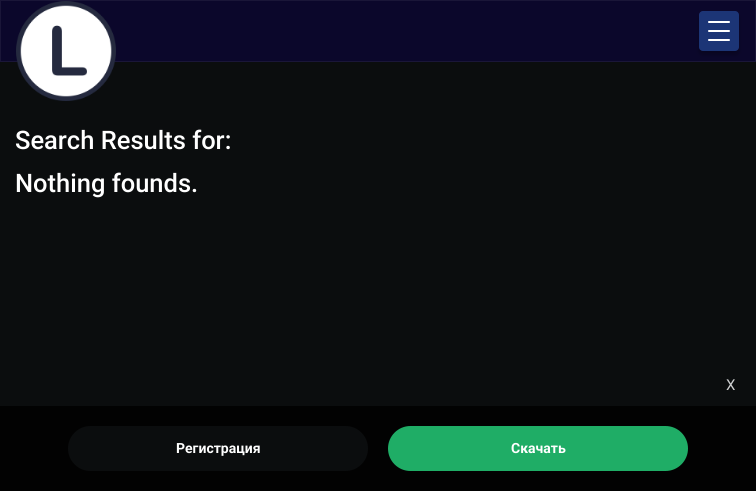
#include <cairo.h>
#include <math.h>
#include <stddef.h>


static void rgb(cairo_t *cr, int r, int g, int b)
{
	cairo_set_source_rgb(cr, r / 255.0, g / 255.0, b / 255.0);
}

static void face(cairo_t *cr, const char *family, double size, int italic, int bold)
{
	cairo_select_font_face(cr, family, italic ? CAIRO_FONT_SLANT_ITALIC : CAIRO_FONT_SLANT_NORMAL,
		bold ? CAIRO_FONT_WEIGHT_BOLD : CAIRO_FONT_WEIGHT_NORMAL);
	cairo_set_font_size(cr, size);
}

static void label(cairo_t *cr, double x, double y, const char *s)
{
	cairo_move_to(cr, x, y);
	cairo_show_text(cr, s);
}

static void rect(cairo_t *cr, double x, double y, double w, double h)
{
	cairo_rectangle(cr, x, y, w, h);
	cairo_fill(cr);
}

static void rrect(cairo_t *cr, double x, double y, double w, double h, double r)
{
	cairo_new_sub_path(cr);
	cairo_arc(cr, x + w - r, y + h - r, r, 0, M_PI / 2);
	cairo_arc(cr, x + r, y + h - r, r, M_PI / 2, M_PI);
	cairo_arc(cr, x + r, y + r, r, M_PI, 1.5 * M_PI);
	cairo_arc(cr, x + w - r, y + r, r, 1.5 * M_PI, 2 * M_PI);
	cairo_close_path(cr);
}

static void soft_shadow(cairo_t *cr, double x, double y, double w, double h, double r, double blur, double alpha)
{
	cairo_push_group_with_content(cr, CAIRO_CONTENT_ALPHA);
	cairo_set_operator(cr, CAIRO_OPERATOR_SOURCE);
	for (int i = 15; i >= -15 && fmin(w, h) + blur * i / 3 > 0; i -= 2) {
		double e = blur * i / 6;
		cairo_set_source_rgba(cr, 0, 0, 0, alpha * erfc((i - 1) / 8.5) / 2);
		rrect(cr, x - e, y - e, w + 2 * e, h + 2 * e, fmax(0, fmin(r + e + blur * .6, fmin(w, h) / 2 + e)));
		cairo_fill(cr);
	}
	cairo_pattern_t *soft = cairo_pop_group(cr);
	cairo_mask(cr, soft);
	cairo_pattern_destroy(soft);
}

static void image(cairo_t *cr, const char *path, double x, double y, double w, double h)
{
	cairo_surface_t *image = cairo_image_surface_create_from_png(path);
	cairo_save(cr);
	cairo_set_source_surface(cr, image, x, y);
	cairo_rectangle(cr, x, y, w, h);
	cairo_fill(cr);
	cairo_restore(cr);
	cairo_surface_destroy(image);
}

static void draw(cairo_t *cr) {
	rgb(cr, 11, 13, 14);
	cairo_paint(cr);
	rgb(cr, 11, 7, 43);
	cairo_rectangle(cr, 0.5, 0.5, 755, 61);
	cairo_fill_preserve(cr);
	rgb(cr, 26, 22, 56);
	cairo_set_line_width(cr, 1);
	cairo_stroke(cr);
	image(cr, "image0.png", 16, 1, 100, 100);
	rgb(cr, 0, 0, 0);
	soft_shadow(cr, 699, 15, 40, 40, 4, 2, 0.25);
	rgb(cr, 28, 53, 118);
	rrect(cr, 699, 11, 40, 40, 4);
	cairo_fill(cr);
	rgb(cr, 255, 255, 255);
	rrect(cr, 708, 30, 22, 2, 1);
	cairo_fill(cr);
	rrect(cr, 708, 21, 22, 2, 1);
	cairo_fill(cr);
	rrect(cr, 708, 39, 22, 2, 1);
	cairo_fill(cr);
	face(cr, "Roboto Medium", 25.5, 0, 0);
	label(cr, 15, 149, "Search Results for:");
	label(cr, 15, 192, "Nothing founds.");
	rgb(cr, 2, 2, 2);
	rect(cr, 0, 406, 756, 85);
	face(cr, "Roboto", 15, 0, 0);
	rgb(cr, 205, 206, 207);
	label(cr, 726, 390, "X");
	rgb(cr, 11, 13, 14);
	rrect(cr, 68, 426, 300, 45, 22.5);
	cairo_fill(cr);
	face(cr, "Roboto", 14, 0, 1);
	rgb(cr, 255, 255, 255);
	label(cr, 176, 453, "Регистрация");
	rgb(cr, 31, 173, 102);
	rrect(cr, 388, 426, 300, 45, 22.5);
	cairo_fill(cr);
	rgb(cr, 255, 255, 255);
	label(cr, 511, 453, "Скачать");
}

int main(void) {
	cairo_surface_t *surface = cairo_image_surface_create(CAIRO_FORMAT_RGB24, 756, 491);
	cairo_t *cr = cairo_create(surface);
	cairo_font_options_t *options = cairo_font_options_create();
	cairo_font_options_set_hint_metrics(options, CAIRO_HINT_METRICS_OFF);
	cairo_font_options_set_hint_style(options, CAIRO_HINT_STYLE_NONE);
	cairo_set_font_options(cr, options);
	cairo_set_miter_limit(cr, 4);
	draw(cr);
	cairo_surface_write_to_png(surface, "render.png");
	cairo_font_options_destroy(options);
	cairo_destroy(cr);
	cairo_surface_destroy(surface);
	return 0;
}
